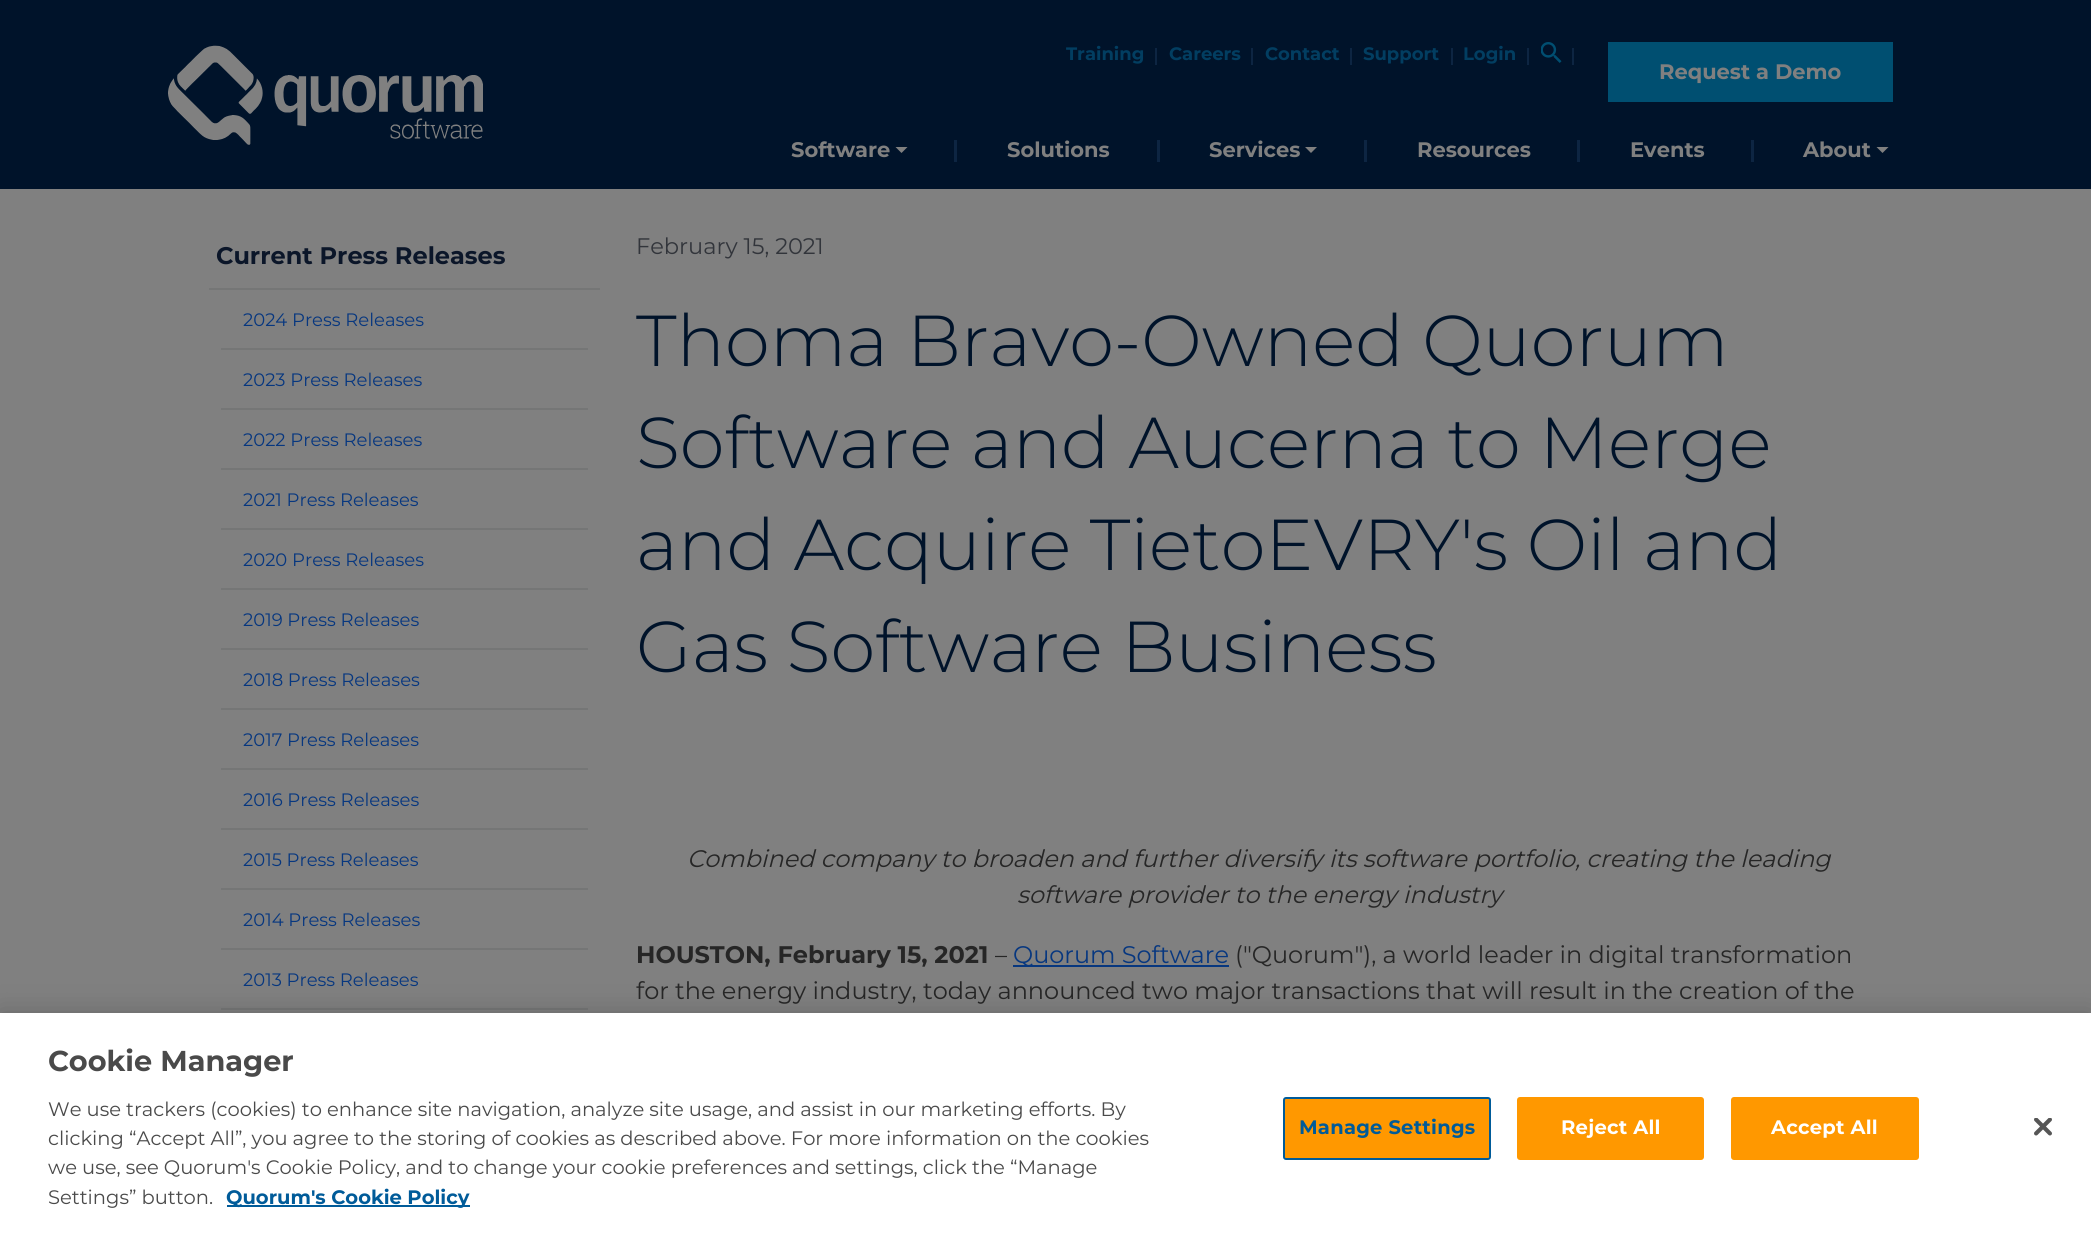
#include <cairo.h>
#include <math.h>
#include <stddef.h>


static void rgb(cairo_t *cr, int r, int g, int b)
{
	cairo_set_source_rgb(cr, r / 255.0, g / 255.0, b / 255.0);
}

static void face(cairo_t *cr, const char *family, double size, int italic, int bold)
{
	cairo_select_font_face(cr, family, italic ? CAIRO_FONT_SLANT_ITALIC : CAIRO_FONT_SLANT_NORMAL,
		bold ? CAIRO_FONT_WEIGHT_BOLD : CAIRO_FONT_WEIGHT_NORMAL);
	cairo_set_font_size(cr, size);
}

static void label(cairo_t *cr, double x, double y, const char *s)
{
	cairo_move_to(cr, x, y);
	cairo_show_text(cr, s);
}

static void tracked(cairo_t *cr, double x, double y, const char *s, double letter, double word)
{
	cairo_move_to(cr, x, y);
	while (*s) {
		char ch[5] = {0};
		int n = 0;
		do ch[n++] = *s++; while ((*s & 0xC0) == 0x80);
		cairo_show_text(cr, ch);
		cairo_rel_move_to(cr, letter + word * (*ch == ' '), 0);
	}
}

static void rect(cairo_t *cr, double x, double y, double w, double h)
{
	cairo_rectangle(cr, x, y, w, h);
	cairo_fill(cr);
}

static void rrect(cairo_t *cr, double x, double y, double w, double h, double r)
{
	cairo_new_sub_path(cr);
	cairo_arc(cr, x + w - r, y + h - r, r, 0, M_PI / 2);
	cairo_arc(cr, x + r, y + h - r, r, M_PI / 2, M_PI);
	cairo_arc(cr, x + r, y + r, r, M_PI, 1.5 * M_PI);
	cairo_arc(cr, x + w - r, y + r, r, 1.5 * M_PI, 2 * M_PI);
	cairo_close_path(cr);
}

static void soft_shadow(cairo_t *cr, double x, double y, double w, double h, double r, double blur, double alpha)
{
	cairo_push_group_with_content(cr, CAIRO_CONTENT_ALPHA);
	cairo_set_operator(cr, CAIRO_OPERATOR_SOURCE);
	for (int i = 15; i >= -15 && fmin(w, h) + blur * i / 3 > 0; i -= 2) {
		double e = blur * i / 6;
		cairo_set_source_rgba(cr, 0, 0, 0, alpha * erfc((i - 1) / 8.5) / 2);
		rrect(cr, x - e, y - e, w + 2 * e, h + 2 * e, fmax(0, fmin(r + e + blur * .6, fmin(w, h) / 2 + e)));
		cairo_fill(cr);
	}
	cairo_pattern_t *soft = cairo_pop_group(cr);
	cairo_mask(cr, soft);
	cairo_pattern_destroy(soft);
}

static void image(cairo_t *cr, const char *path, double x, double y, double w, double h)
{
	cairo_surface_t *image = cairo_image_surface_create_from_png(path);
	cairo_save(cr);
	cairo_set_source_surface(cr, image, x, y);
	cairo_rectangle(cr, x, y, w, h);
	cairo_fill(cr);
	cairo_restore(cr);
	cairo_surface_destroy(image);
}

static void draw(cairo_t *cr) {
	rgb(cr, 128, 128, 128);
	cairo_paint(cr);
	rgb(cr, 0, 19, 42);
	rect(cr, 0, 0, 2091, 189);
	image(cr, "image0.png", 168, 45, 315, 100);
	face(cr, "Montserrat", 18, 0, 1);
	rgb(cr, 2, 62, 97);
	label(cr, 1066, 60, "Training");
	rgb(cr, 13, 37, 66);
	rect(cr, 1155, 48, 2, 17);
	rgb(cr, 2, 62, 97);
	label(cr, 1169, 60, "Careers");
	rgb(cr, 13, 37, 66);
	rect(cr, 1251, 48, 2, 17);
	rgb(cr, 2, 62, 97);
	label(cr, 1265, 60, "Contact");
	rgb(cr, 13, 37, 66);
	rect(cr, 1350, 48, 2, 17);
	rgb(cr, 2, 62, 97);
	label(cr, 1363, 60, "Support");
	rgb(cr, 13, 37, 66);
	rect(cr, 1451, 48, 2, 17);
	rgb(cr, 2, 62, 97);
	label(cr, 1463, 60, "Login");
	rgb(cr, 13, 37, 66);
	rect(cr, 1527, 48, 2, 17);
	image(cr, "image1.png", 1541, 42, 21, 21);
	rect(cr, 1572, 48, 2, 17);
	rgb(cr, 0, 79, 113);
	rect(cr, 1608, 42, 285, 60);
	face(cr, "Montserrat", 21, 0, 1);
	rgb(cr, 128, 128, 128);
	label(cr, 1659, 79, "Request a Demo");
	label(cr, 791, 157, "Software");
	cairo_new_path(cr);
	cairo_move_to(cr, 895.5, 147);
	cairo_line_to(cr, 907.5, 147);
	cairo_line_to(cr, 901.5, 153);
	cairo_close_path(cr);
	cairo_fill(cr);
	rgb(cr, 13, 37, 66);
	rect(cr, 954, 140, 3, 22);
	rgb(cr, 128, 128, 128);
	label(cr, 1007, 157, "Solutions");
	rgb(cr, 13, 37, 66);
	rect(cr, 1157, 140, 3, 22);
	rgb(cr, 128, 128, 128);
	label(cr, 1209, 157, "Services");
	cairo_new_path(cr);
	cairo_move_to(cr, 1305, 147);
	cairo_line_to(cr, 1317, 147);
	cairo_line_to(cr, 1311, 153);
	cairo_close_path(cr);
	cairo_fill(cr);
	rgb(cr, 13, 37, 66);
	rect(cr, 1364, 140, 3, 22);
	rgb(cr, 128, 128, 128);
	label(cr, 1417, 157, "Resources");
	rgb(cr, 13, 37, 66);
	rect(cr, 1577, 140, 3, 22);
	rgb(cr, 128, 128, 128);
	label(cr, 1630, 157, "Events");
	rgb(cr, 13, 37, 66);
	rect(cr, 1751, 140, 3, 22);
	rgb(cr, 128, 128, 128);
	label(cr, 1803, 157, "About");
	cairo_new_path(cr);
	cairo_move_to(cr, 1876.5, 147);
	cairo_line_to(cr, 1888.5, 147);
	cairo_line_to(cr, 1882.5, 153);
	cairo_close_path(cr);
	cairo_fill(cr);
	rgb(cr, 117, 118, 118);
	rect(cr, 209, 288, 391, 2);
	face(cr, "Montserrat", 24, 0, 1);
	rgb(cr, 11, 22, 41);
	label(cr, 216, 264, "Current Press Releases");
	rgb(cr, 117, 118, 118);
	rect(cr, 221, 348, 367, 2);
	face(cr, "Montserrat", 18, 0, 0);
	rgb(cr, 7, 55, 127);
	label(cr, 243, 326, "2024 Press Releases");
	rgb(cr, 117, 118, 118);
	rect(cr, 221, 408, 367, 2);
	rgb(cr, 7, 55, 127);
	label(cr, 243, 386, "2023 Press Releases");
	rgb(cr, 117, 118, 118);
	rect(cr, 221, 468, 367, 2);
	rgb(cr, 7, 55, 127);
	label(cr, 243, 446, "2022 Press Releases");
	rgb(cr, 117, 118, 118);
	rect(cr, 221, 528, 367, 2);
	rgb(cr, 7, 55, 127);
	label(cr, 243, 506, "2021 Press Releases");
	rgb(cr, 117, 118, 118);
	rect(cr, 221, 588, 367, 2);
	rgb(cr, 7, 55, 127);
	label(cr, 243, 566, "2020 Press Releases");
	rgb(cr, 117, 118, 118);
	rect(cr, 221, 648, 367, 2);
	rgb(cr, 7, 55, 127);
	label(cr, 243, 626, "2019 Press Releases");
	rgb(cr, 117, 118, 118);
	rect(cr, 221, 708, 367, 2);
	rgb(cr, 7, 55, 127);
	label(cr, 243, 686, "2018 Press Releases");
	rgb(cr, 117, 118, 118);
	rect(cr, 221, 768, 367, 2);
	rgb(cr, 7, 55, 127);
	label(cr, 243, 746, "2017 Press Releases");
	rgb(cr, 117, 118, 118);
	rect(cr, 221, 828, 367, 2);
	rgb(cr, 7, 55, 127);
	label(cr, 243, 806, "2016 Press Releases");
	rgb(cr, 117, 118, 118);
	rect(cr, 221, 888, 367, 2);
	rgb(cr, 7, 55, 127);
	label(cr, 243, 866, "2015 Press Releases");
	rgb(cr, 117, 118, 118);
	rect(cr, 221, 948, 367, 2);
	rgb(cr, 7, 55, 127);
	label(cr, 243, 926, "2014 Press Releases");
	rgb(cr, 117, 118, 118);
	rect(cr, 221, 1008, 367, 2);
	rgb(cr, 7, 55, 127);
	label(cr, 243, 986, "2013 Press Releases");
	face(cr, "Montserrat", 22.5, 0, 0);
	rgb(cr, 50, 53, 59);
	label(cr, 636, 254, "February 15, 2021");
	face(cr, "Montserrat Light", 72, 0, 0);
	rgb(cr, 0, 19, 42);
	label(cr, 636, 366, "Thoma Bravo-Owned Quorum");
	label(cr, 636, 468, "Software and Aucerna to Merge");
	label(cr, 636, 570, "and Acquire TietoEVRY's Oil and");
	label(cr, 636, 672, "Gas Software Business");
	face(cr, "Montserrat", 24, 1, 0);
	rgb(cr, 38, 38, 38);
	label(cr, 687, 867, "Combined company to broaden and further diversify its software portfolio, creating the leading");
	label(cr, 1017, 903, "software provider to the energy industry");
	face(cr, "Montserrat", 24, 0, 1);
	label(cr, 636, 963, "HOUSTON, February 15, 2021");
	face(cr, "Montserrat", 24, 0, 0);
	label(cr, 995, 963, "–");
	rgb(cr, 7, 55, 127);
	rect(cr, 1013, 965, 216, 2);
	label(cr, 1013, 963, "Quorum Software");
	rgb(cr, 38, 38, 38);
	label(cr, 1235, 963, "(\"Quorum\"), a world leader in digital transformation");
	label(cr, 636, 999, "for the energy industry, today announced two major transactions that will result in the creation of the");
	rgb(cr, 0, 0, 0);
	soft_shadow(cr, 0, 1013, 2091, 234, 0, 13.5, 0.2);
	rgb(cr, 255, 255, 255);
	rect(cr, 0, 1013, 2091, 233);
	face(cr, "Montserrat", 28.75, 0, 1);
	rgb(cr, 74, 74, 74);
	label(cr, 48, 1071, "Cookie Manager");
	face(cr, "Montserrat", 19.5, 0, 0);
	label(cr, 48, 1116, "We use trackers (cookies) to enhance site navigation, analyze site usage, and assist in our marketing efforts. By");
	label(cr, 48, 1145, "clicking “Accept All”, you agree to the storing of cookies as described above. For more information on the cookies");
	label(cr, 48, 1174, "we use, see Quorum's Cookie Policy, and to change your cookie preferences and settings, click the “Manage");
	label(cr, 48, 1204, "Settings” button.");
	rgb(cr, 0, 91, 153);
	rect(cr, 227, 1205, 243, 2);
	face(cr, "Montserrat", 19.5, 0, 1);
	label(cr, 226, 1204, "Quorum's Cookie Policy");
	rgb(cr, 255, 152, 0);
	rrect(cr, 1284, 1098, 206, 61, 2);
	cairo_fill_preserve(cr);
	rgb(cr, 0, 91, 153);
	cairo_stroke(cr);
	tracked(cr, 1299, 1134, "Manage Settings", 0.25, 0);
	rgb(cr, 255, 152, 0);
	rrect(cr, 1518, 1098, 185, 61, 2);
	cairo_fill_preserve(cr);
	cairo_stroke(cr);
	rgb(cr, 255, 255, 255);
	tracked(cr, 1561, 1134, "Reject All", 0.25, 0);
	rgb(cr, 255, 152, 0);
	rrect(cr, 1732, 1098, 186, 61, 2);
	cairo_fill_preserve(cr);
	cairo_stroke(cr);
	rgb(cr, 255, 255, 255);
	tracked(cr, 1771, 1134, "Accept All", 0.25, 0);
	image(cr, "image2.png", 2034, 1118, 18, 18);
}

int main(void) {
	cairo_surface_t *surface = cairo_image_surface_create(CAIRO_FORMAT_RGB24, 2091, 1246);
	cairo_t *cr = cairo_create(surface);
	cairo_font_options_t *options = cairo_font_options_create();
	cairo_font_options_set_hint_metrics(options, CAIRO_HINT_METRICS_OFF);
	cairo_font_options_set_hint_style(options, CAIRO_HINT_STYLE_NONE);
	cairo_set_font_options(cr, options);
	cairo_set_miter_limit(cr, 4);
	draw(cr);
	cairo_surface_write_to_png(surface, "render.png");
	cairo_font_options_destroy(options);
	cairo_destroy(cr);
	cairo_surface_destroy(surface);
	return 0;
}
